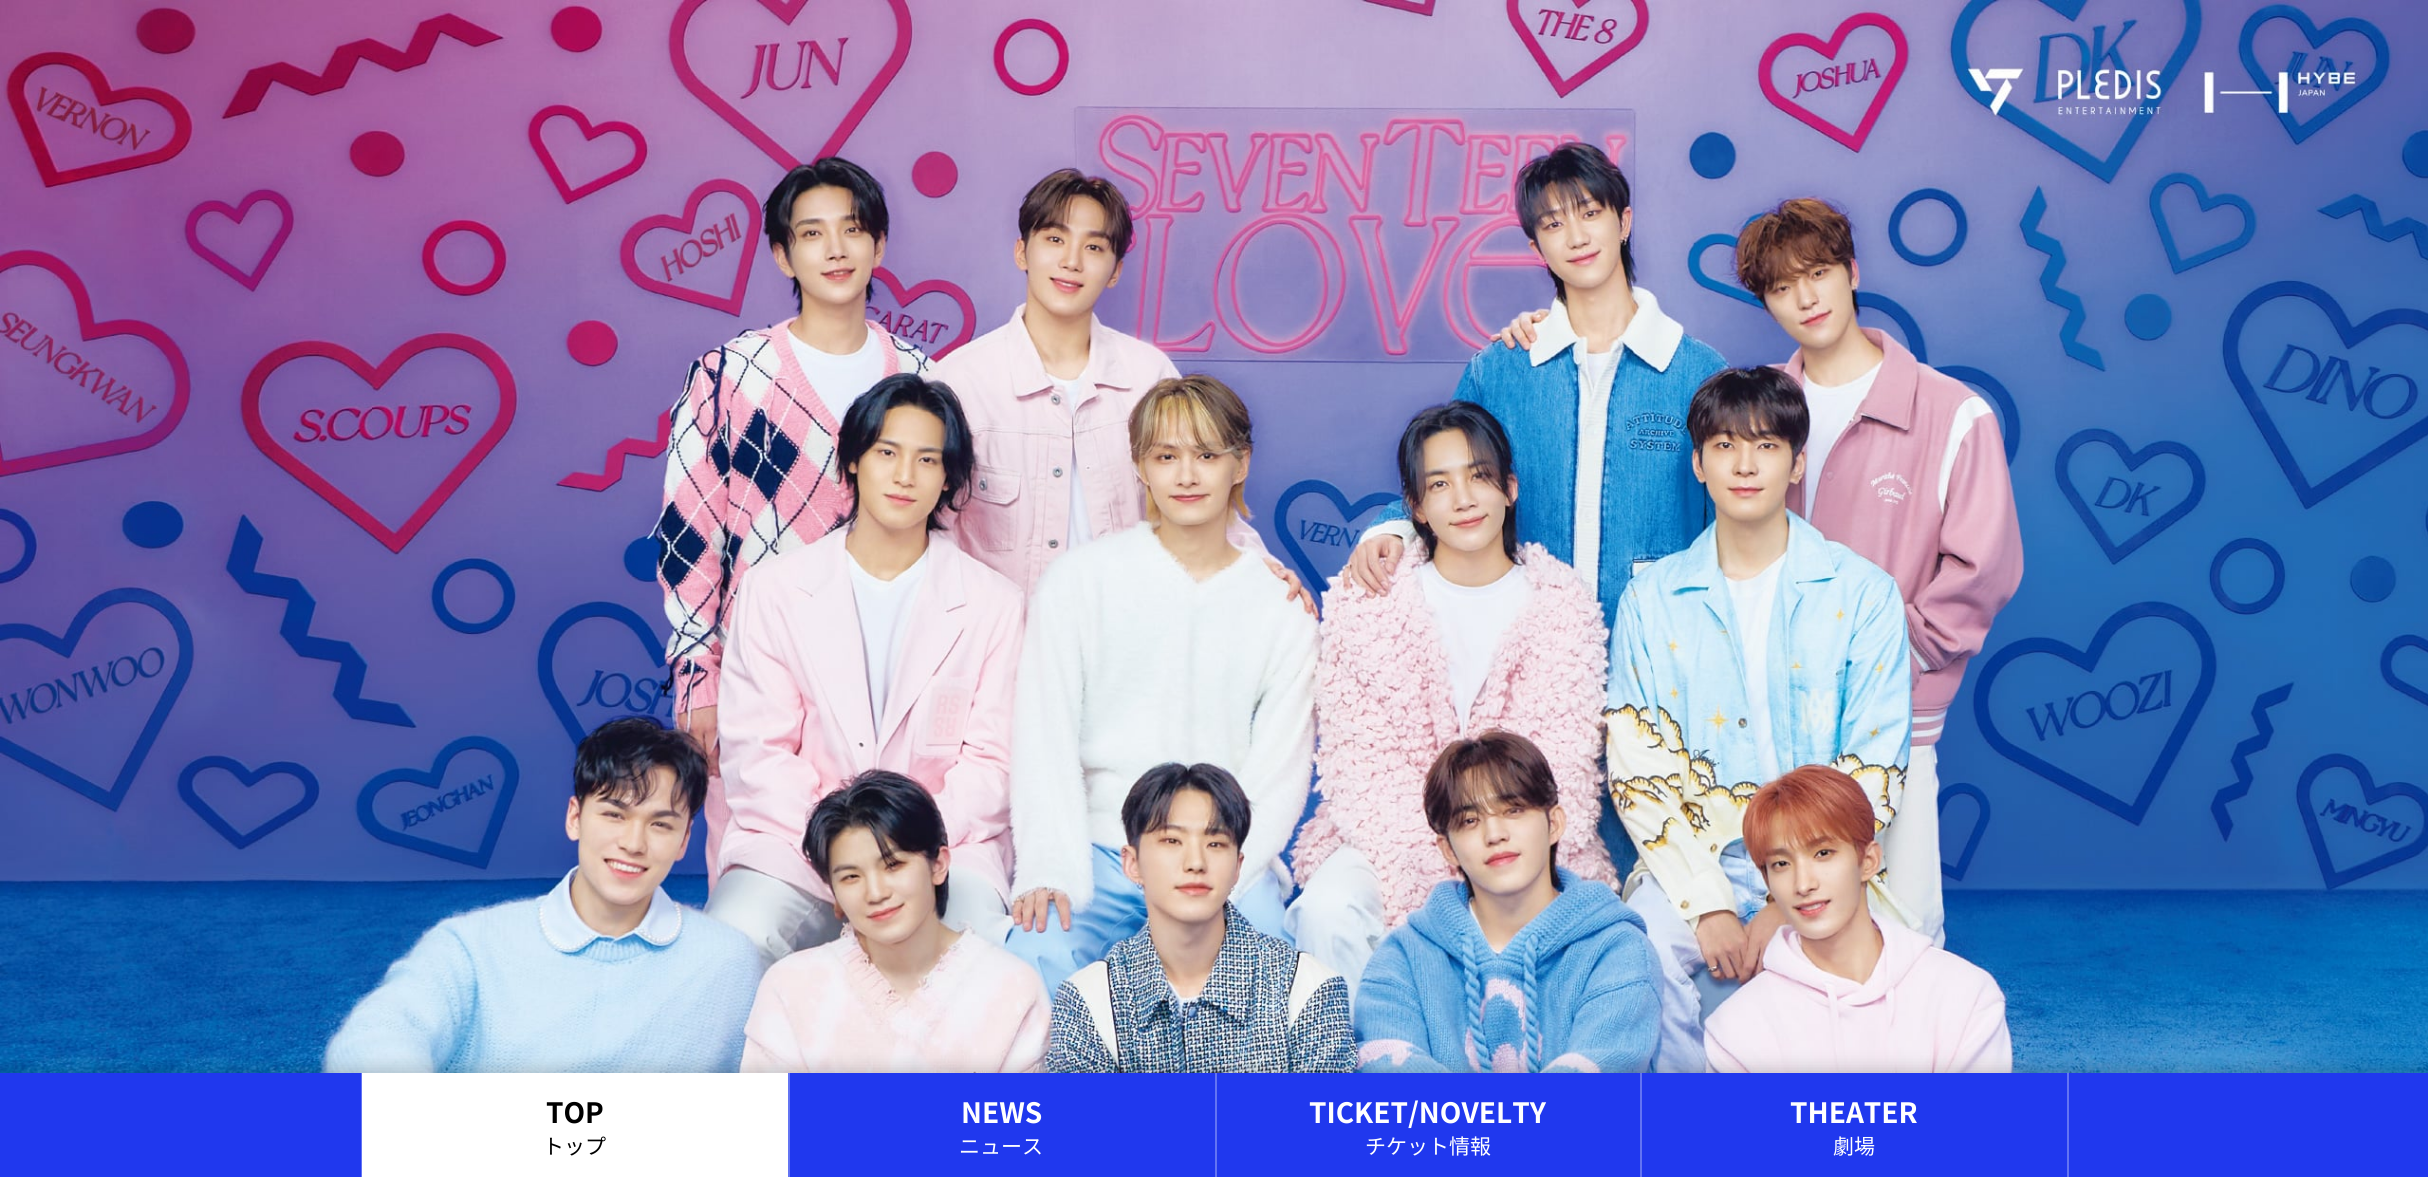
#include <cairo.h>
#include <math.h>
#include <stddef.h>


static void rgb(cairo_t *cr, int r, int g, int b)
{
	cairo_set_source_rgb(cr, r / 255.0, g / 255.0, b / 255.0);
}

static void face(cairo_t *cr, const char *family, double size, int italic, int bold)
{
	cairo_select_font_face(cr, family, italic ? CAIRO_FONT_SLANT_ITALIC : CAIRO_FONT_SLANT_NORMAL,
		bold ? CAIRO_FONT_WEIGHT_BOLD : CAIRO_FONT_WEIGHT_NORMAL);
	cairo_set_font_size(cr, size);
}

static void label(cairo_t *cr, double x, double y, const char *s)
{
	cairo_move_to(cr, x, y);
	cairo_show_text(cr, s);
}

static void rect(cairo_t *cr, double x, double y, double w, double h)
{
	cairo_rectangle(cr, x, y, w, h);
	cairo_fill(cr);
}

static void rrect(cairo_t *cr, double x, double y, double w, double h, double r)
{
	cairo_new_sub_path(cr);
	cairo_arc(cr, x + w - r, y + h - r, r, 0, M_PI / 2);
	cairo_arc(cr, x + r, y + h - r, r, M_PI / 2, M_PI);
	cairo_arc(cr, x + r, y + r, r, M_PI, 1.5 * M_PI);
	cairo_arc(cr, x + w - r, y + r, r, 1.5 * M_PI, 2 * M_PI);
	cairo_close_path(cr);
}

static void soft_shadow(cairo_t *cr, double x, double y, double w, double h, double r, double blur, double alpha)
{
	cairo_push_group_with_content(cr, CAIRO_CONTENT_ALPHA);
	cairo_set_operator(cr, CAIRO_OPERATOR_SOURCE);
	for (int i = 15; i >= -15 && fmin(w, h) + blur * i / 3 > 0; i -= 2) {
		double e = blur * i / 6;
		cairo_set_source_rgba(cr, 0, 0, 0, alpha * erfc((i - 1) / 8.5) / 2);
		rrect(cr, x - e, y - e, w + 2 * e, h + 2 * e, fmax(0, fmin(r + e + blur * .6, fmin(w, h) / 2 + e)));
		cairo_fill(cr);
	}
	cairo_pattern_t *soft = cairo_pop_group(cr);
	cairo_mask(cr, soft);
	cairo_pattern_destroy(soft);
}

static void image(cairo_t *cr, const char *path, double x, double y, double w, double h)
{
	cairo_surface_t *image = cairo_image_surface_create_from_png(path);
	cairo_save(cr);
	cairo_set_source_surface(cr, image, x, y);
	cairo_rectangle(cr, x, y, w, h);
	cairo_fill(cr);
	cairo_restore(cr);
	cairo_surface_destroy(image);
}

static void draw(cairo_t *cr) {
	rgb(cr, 255, 255, 255);
	cairo_paint(cr);
	image(cr, "image0.png", 0, 0, 2428, 1073);
	rgb(cr, 0, 0, 0);
	soft_shadow(cr, 0, 1069, 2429, 105, 0, 9, 0.2);
	rgb(cr, 32, 56, 238);
	rect(cr, 0, 1073, 2428, 104);
	rgb(cr, 99, 116, 243);
	rect(cr, 361, 1073, 1, 104);
	rect(cr, 788, 1073, 2, 104);
	rgb(cr, 255, 255, 255);
	rect(cr, 362, 1073, 426, 104);
	face(cr, "Noto Sans JP", 28, 0, 1);
	rgb(cr, 0, 0, 0);
	label(cr, 546, 1123, "TOP");
	face(cr, "Noto Sans JP", 21, 0, 0);
	label(cr, 543, 1154, "トップ");
	rgb(cr, 99, 116, 243);
	rect(cr, 1215, 1073, 2, 104);
	face(cr, "Noto Sans JP", 28, 0, 1);
	rgb(cr, 255, 255, 255);
	label(cr, 961, 1123, "NEWS");
	face(cr, "Noto Sans JP", 21, 0, 0);
	label(cr, 959, 1154, "ニュース");
	rgb(cr, 99, 116, 243);
	rect(cr, 1640, 1073, 2, 104);
	face(cr, "Noto Sans JP", 28, 0, 1);
	rgb(cr, 255, 255, 255);
	label(cr, 1309, 1123, "TICKET/NOVELTY");
	face(cr, "Noto Sans JP", 21, 0, 0);
	label(cr, 1365, 1154, "チケット情報");
	rgb(cr, 99, 116, 243);
	rect(cr, 2067, 1073, 2, 104);
	face(cr, "Noto Sans JP", 28, 0, 1);
	rgb(cr, 255, 255, 255);
	label(cr, 1790, 1123, "THEATER");
	face(cr, "Noto Sans JP", 21, 0, 0);
	label(cr, 1833, 1154, "劇場");
}

int main(void) {
	cairo_surface_t *surface = cairo_image_surface_create(CAIRO_FORMAT_RGB24, 2428, 1177);
	cairo_t *cr = cairo_create(surface);
	cairo_font_options_t *options = cairo_font_options_create();
	cairo_font_options_set_hint_metrics(options, CAIRO_HINT_METRICS_OFF);
	cairo_font_options_set_hint_style(options, CAIRO_HINT_STYLE_NONE);
	cairo_set_font_options(cr, options);
	cairo_set_miter_limit(cr, 4);
	draw(cr);
	cairo_surface_write_to_png(surface, "render.png");
	cairo_font_options_destroy(options);
	cairo_destroy(cr);
	cairo_surface_destroy(surface);
	return 0;
}
